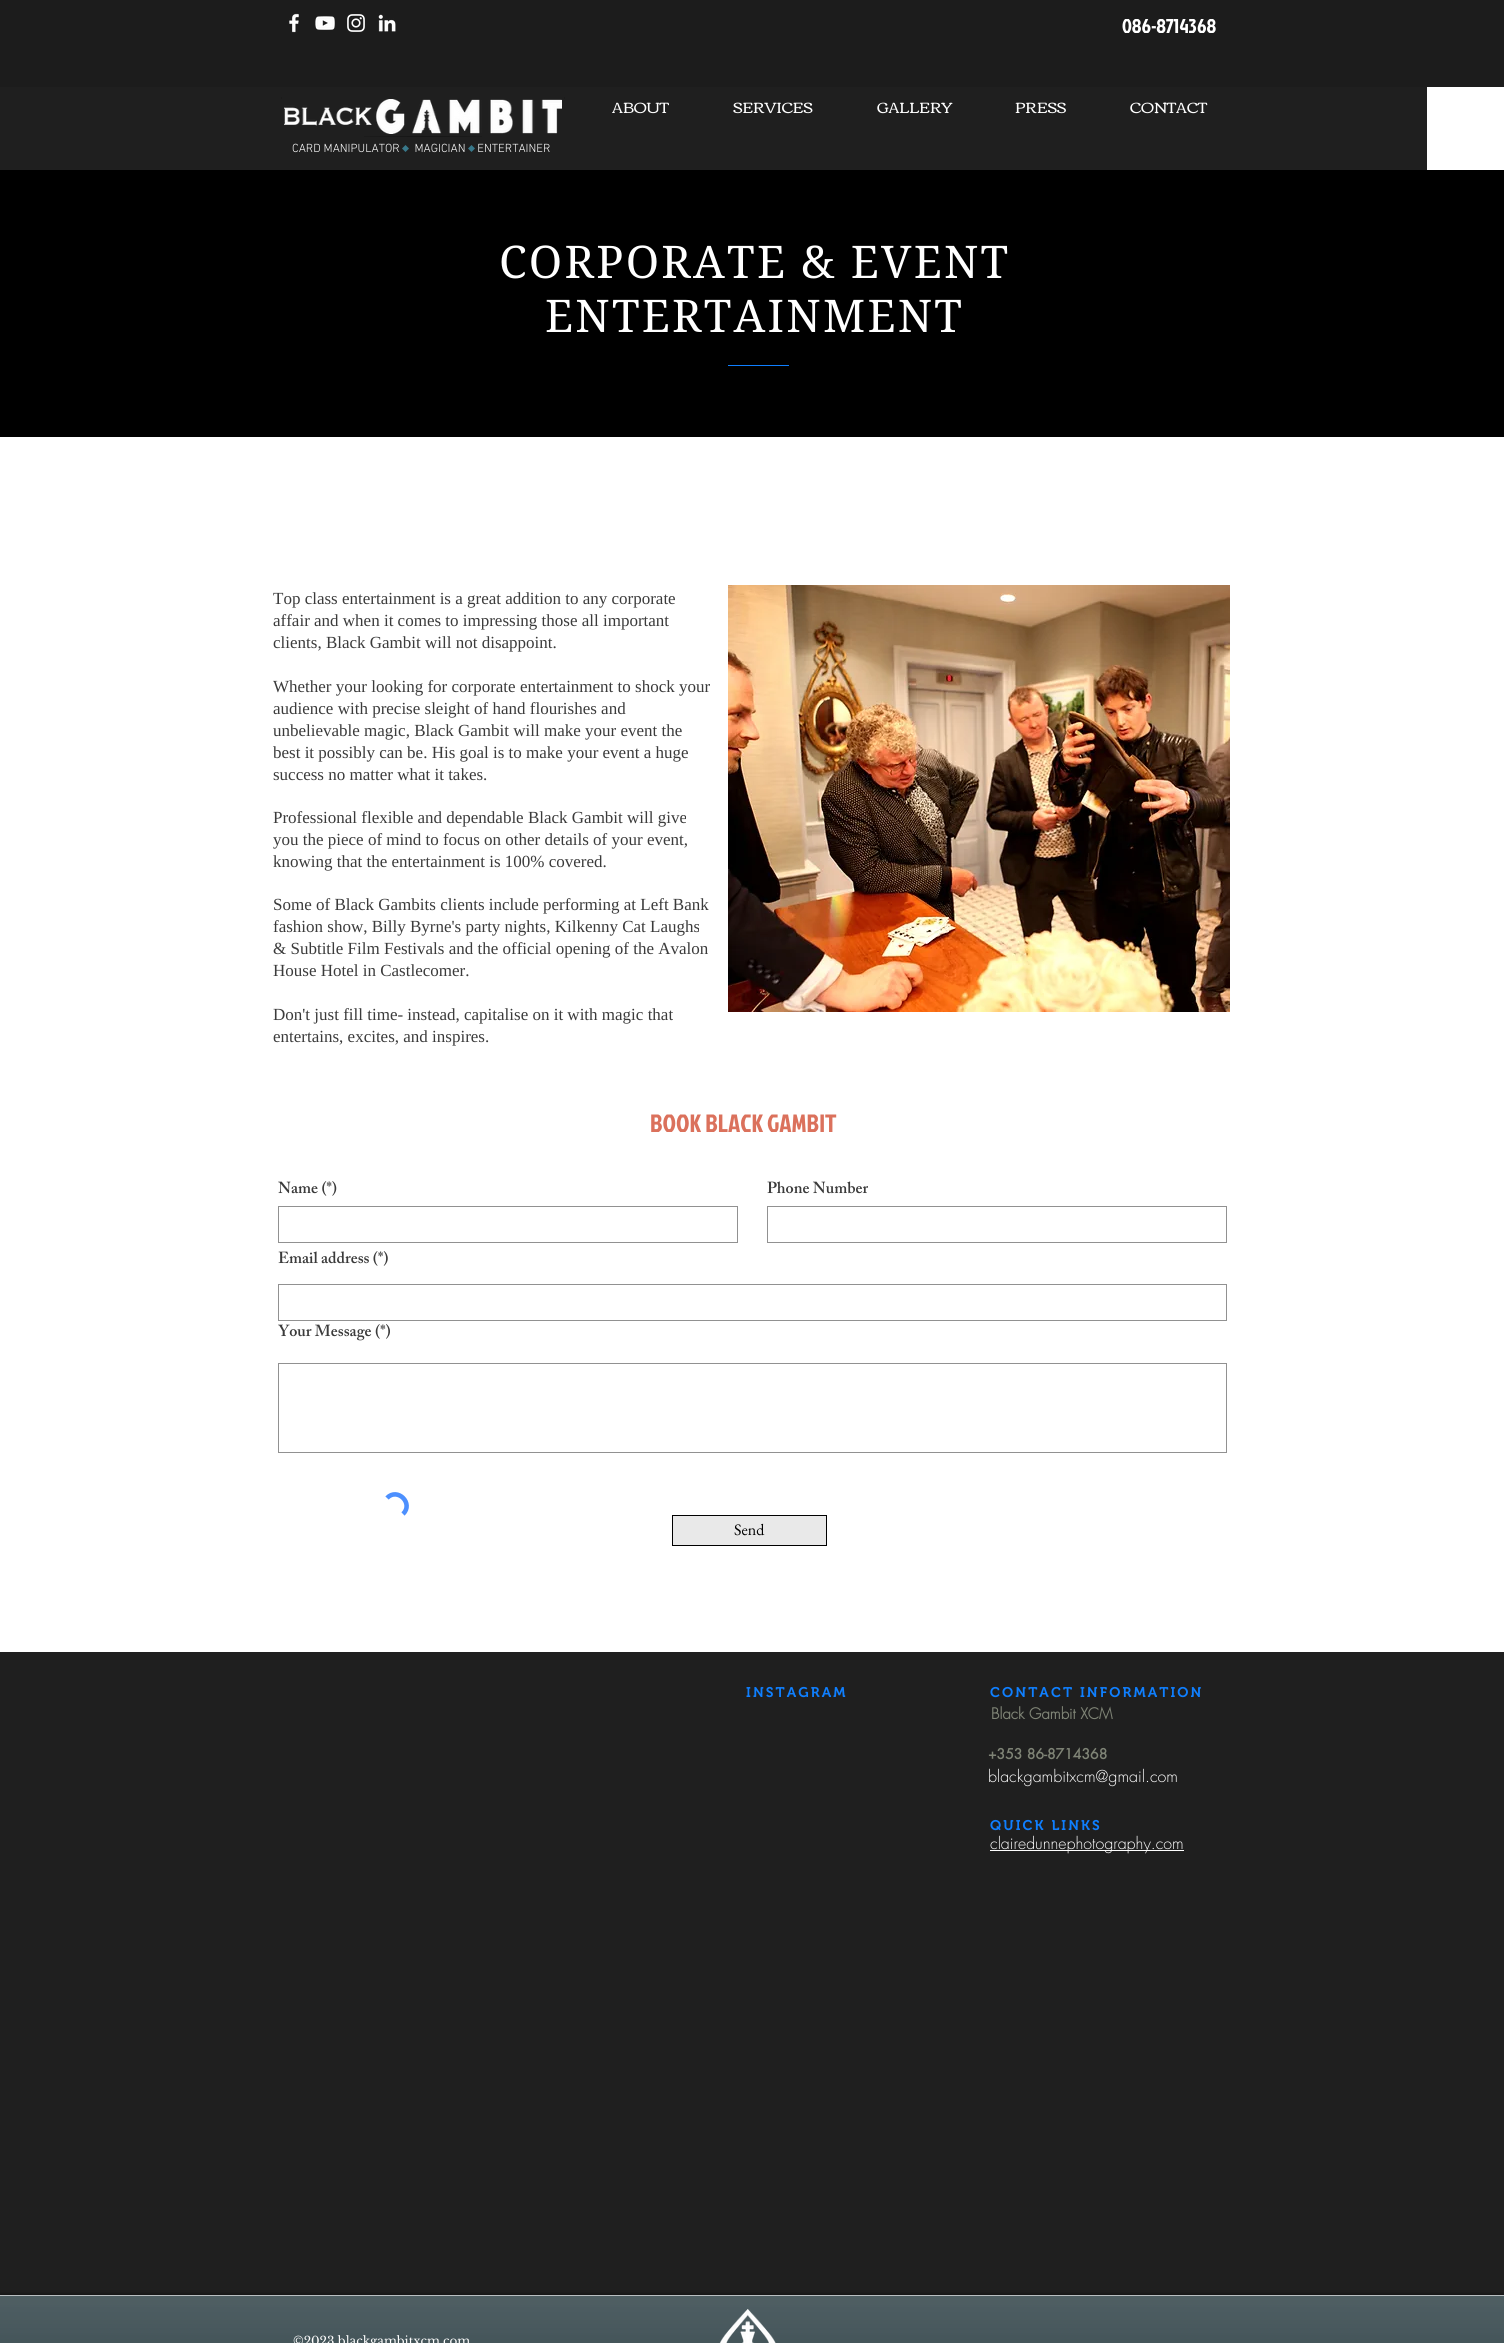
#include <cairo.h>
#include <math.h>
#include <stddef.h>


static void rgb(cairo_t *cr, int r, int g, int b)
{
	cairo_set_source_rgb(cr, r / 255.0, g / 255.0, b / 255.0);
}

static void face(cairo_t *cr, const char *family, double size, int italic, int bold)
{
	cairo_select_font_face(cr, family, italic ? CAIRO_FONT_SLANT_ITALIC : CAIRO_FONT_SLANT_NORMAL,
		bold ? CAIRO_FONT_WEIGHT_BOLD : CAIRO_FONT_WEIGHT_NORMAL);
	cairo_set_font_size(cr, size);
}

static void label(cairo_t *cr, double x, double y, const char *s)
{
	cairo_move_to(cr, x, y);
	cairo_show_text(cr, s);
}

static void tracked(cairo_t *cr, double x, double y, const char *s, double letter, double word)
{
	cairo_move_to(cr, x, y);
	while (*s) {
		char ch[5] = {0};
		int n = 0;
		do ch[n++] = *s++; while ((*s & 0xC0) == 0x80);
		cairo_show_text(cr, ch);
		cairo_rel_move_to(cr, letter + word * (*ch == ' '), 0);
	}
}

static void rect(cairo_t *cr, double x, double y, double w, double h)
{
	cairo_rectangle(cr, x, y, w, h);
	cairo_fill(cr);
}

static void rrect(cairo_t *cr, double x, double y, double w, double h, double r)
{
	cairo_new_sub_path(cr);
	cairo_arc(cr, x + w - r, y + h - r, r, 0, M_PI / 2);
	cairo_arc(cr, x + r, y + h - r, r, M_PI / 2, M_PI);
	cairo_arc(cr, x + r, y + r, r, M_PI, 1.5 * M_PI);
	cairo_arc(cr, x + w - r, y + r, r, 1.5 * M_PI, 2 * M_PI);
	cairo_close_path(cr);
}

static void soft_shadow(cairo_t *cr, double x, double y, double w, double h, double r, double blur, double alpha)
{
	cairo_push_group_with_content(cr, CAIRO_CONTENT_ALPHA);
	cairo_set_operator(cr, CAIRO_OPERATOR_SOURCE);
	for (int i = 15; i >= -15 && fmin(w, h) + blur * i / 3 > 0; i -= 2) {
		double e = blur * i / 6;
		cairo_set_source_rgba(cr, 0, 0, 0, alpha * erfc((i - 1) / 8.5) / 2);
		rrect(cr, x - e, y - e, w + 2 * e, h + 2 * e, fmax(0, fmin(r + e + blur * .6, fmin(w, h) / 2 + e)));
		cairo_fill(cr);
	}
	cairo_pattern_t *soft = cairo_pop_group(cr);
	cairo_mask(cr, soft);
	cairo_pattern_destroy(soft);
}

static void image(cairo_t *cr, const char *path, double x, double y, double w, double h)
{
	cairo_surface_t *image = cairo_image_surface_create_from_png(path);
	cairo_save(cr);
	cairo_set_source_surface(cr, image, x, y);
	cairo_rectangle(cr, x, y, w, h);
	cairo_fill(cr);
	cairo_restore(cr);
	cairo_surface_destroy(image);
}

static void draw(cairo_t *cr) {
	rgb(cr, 255, 255, 255);
	cairo_paint(cr);
	rgb(cr, 28, 28, 28);
	rect(cr, 0, 0, 1504, 87);
	image(cr, "image0.png", 289, 13, 10, 20);
	image(cr, "image1.png", 315, 16, 20, 14);
	image(cr, "image2.png", 347, 14, 18, 18);
	image(cr, "image3.png", 378, 14, 18, 18);
	face(cr, "Jockey One", 20, 0, 0);
	rgb(cr, 255, 255, 255);
	label(cr, 1122, 33, "086-8714368");
	rgb(cr, 31, 31, 31);
	rect(cr, 0, 87, 1427, 83);
	rgb(cr, 27, 27, 27);
	rect(cr, 281, 97, 1, 2);
	rect(cr, 564, 97, 1, 2);
	image(cr, "image4.png", 284, 99, 278, 35);
	image(cr, "image5.png", 364, 136, 118, 1);
	face(cr, "Corben", 15, 0, 0);
	rgb(cr, 255, 255, 255);
	label(cr, 612, 113, "ABOUT");
	label(cr, 733, 113, "SERVICES");
	label(cr, 877, 113, "GALLERY");
	label(cr, 1015, 113, "PRESS");
	label(cr, 1130, 113, "CONTACT");
	face(cr, "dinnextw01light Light", 12, 0, 0);
	label(cr, 292, 152, "CARD MANIPULATOR     MAGICIAN    ENTERTAINER");
	rgb(cr, 56, 120, 138);
	cairo_new_path(cr);
	cairo_move_to(cr, 405.5, 152);
	cairo_line_to(cr, 402, 148.5);
	cairo_line_to(cr, 405.5, 145);
	cairo_line_to(cr, 409, 148.5);
	cairo_close_path(cr);
	cairo_fill(cr);
	cairo_new_path(cr);
	cairo_move_to(cr, 471.5, 152);
	cairo_line_to(cr, 468, 148.5);
	cairo_line_to(cr, 471.5, 145);
	cairo_line_to(cr, 475, 148.5);
	cairo_close_path(cr);
	cairo_fill(cr);
	rgb(cr, 0, 0, 0);
	rect(cr, 0, 170, 1504, 267);
	face(cr, "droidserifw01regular", 45, 0, 0);
	rgb(cr, 255, 255, 255);
	tracked(cr, 499, 278, "CORPORATE & EVENT", 2.25, 0);
	tracked(cr, 545, 332, "ENTERTAINMENT", 2.25, 0);
	rgb(cr, 15, 127, 255);
	rect(cr, 728, 365, 61, 1);
	face(cr, "Liberation Serif", 17, 0, 0);
	rgb(cr, 59, 59, 59);
	label(cr, 273, 604, "Top class entertainment is a great addition to any corporate");
	label(cr, 273, 626, "affair and when it comes to impressing those all important");
	label(cr, 273, 648, "clients, Black Gambit will not disappoint.");
	label(cr, 273, 692, "Whether your looking for corporate entertainment to shock your");
	label(cr, 273, 714, "audience with precise sleight of hand flourishes and");
	label(cr, 273, 736, "unbelievable magic, Black Gambit will make your event the");
	label(cr, 273, 758, "best it possibly can be. His goal is to make your event a huge");
	label(cr, 273, 780, "success no matter what it takes.");
	label(cr, 273, 823, "Professional flexible and dependable Black Gambit will give");
	label(cr, 273, 845, "you the piece of mind to focus on other details of your event,");
	label(cr, 273, 867, "knowing that the entertainment is 100% covered.");
	label(cr, 273, 910, "Some of Black Gambits clients include performing at Left Bank");
	label(cr, 273, 932, "fashion show, Billy Byrne's party nights, Kilkenny Cat Laughs");
	label(cr, 273, 954, "& Subtitle Film Festivals and the official opening of the Avalon");
	label(cr, 273, 976, "House Hotel in Castlecomer.");
	label(cr, 273, 1020, "Don't just fill time- instead, capitalise on it with magic that");
	label(cr, 273, 1042, "entertains, excites, and inspires.");
	image(cr, "image6.png", 728, 585, 502, 427);
	face(cr, "Jockey One", 25, 0, 0);
	rgb(cr, 219, 113, 92);
	label(cr, 650, 1132, "BOOK BLACK GAMBIT");
	face(cr, "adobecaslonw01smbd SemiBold", 16, 0, 0);
	rgb(cr, 59, 59, 59);
	label(cr, 278, 1193, "Name (*)");
	label(cr, 767, 1193, "Phone Number");
	label(cr, 278, 1263, "Email address (*)");
	label(cr, 278, 1336, "Your Message (*)");
	cairo_rectangle(cr, 278.5, 1206.5, 459, 36);
	rgb(cr, 145, 145, 145);
	cairo_set_line_width(cr, 1);
	cairo_stroke(cr);
	cairo_rectangle(cr, 767.5, 1206.5, 459, 36);
	cairo_stroke(cr);
	cairo_rectangle(cr, 278.5, 1284.5, 948, 36);
	cairo_stroke(cr);
	cairo_rectangle(cr, 278.5, 1363.5, 948, 89);
	cairo_stroke(cr);
	cairo_new_path(cr);
	cairo_move_to(cr, 387, 1498);
	cairo_curve_to(cr, 397.5, 1487, 414, 1503.5, 403, 1514);
	rgb(cr, 77, 144, 254);
	cairo_set_line_width(cr, 4.6);
	cairo_stroke(cr);
	rgb(cr, 233, 233, 233);
	cairo_rectangle(cr, 672.5, 1515.5, 154, 30);
	cairo_fill_preserve(cr);
	rgb(cr, 0, 0, 0);
	cairo_set_line_width(cr, 1);
	cairo_stroke(cr);
	face(cr, "EB Garamond", 16, 0, 0);
	label(cr, 734, 1535, "Send");
	rgb(cr, 31, 31, 31);
	rect(cr, 0, 1652, 1504, 643);
	face(cr, "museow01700 SemiBold", 14, 0, 0);
	rgb(cr, 15, 127, 255);
	tracked(cr, 746, 1697, "INSTAGRAM", 2.1, 0);
	tracked(cr, 990, 1697, "CONTACT INFORMATION", 2.1, 0);
	face(cr, "futura", 15, 0, 1);
	rgb(cr, 127, 132, 118);
	label(cr, 991, 1719, "Black Gambit XCM");
	face(cr, "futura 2", 14, 0, 1);
	label(cr, 988, 1759, "+353 86-8714368");
	face(cr, "futura Light", 16, 0, 0);
	rgb(cr, 255, 255, 255);
	label(cr, 988, 1782, "blackgambitxcm@gmail.com");
	face(cr, "museow01700 SemiBold", 14, 0, 0);
	rgb(cr, 15, 127, 255);
	tracked(cr, 990, 1830, "QUICK LINKS", 2.1, 0);
	rgb(cr, 255, 255, 255);
	rect(cr, 990, 1850, 194, 1);
	face(cr, "futura Light", 16, 0, 0);
	label(cr, 990, 1849, "clairedunnephotography.com");
	rgb(cr, 0, 0, 0);
	soft_shadow(cr, 0, 2295, 1504, 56, 0, 2.5, 0.6);
	rgb(cr, 19, 40, 46);
	rect(cr, 0, 2296, 1504, 47);
	image(cr, "image7.png", 0, 2296, 1504, 47);
	rgb(cr, 185, 191, 193);
	rect(cr, 0, 2295, 1504, 1);
	face(cr, "Libre Baskerville", 12, 0, 0);
	rgb(cr, 255, 255, 255);
	label(cr, 293, 2345, "©2023 blackgambitxcm.com");
	image(cr, "image8.png", 719, 2309, 57, 34);
}

int main(void) {
	cairo_surface_t *surface = cairo_image_surface_create(CAIRO_FORMAT_RGB24, 1504, 2343);
	cairo_t *cr = cairo_create(surface);
	cairo_font_options_t *options = cairo_font_options_create();
	cairo_font_options_set_hint_metrics(options, CAIRO_HINT_METRICS_OFF);
	cairo_font_options_set_hint_style(options, CAIRO_HINT_STYLE_NONE);
	cairo_set_font_options(cr, options);
	cairo_set_miter_limit(cr, 4);
	draw(cr);
	cairo_surface_write_to_png(surface, "render.png");
	cairo_font_options_destroy(options);
	cairo_destroy(cr);
	cairo_surface_destroy(surface);
	return 0;
}
